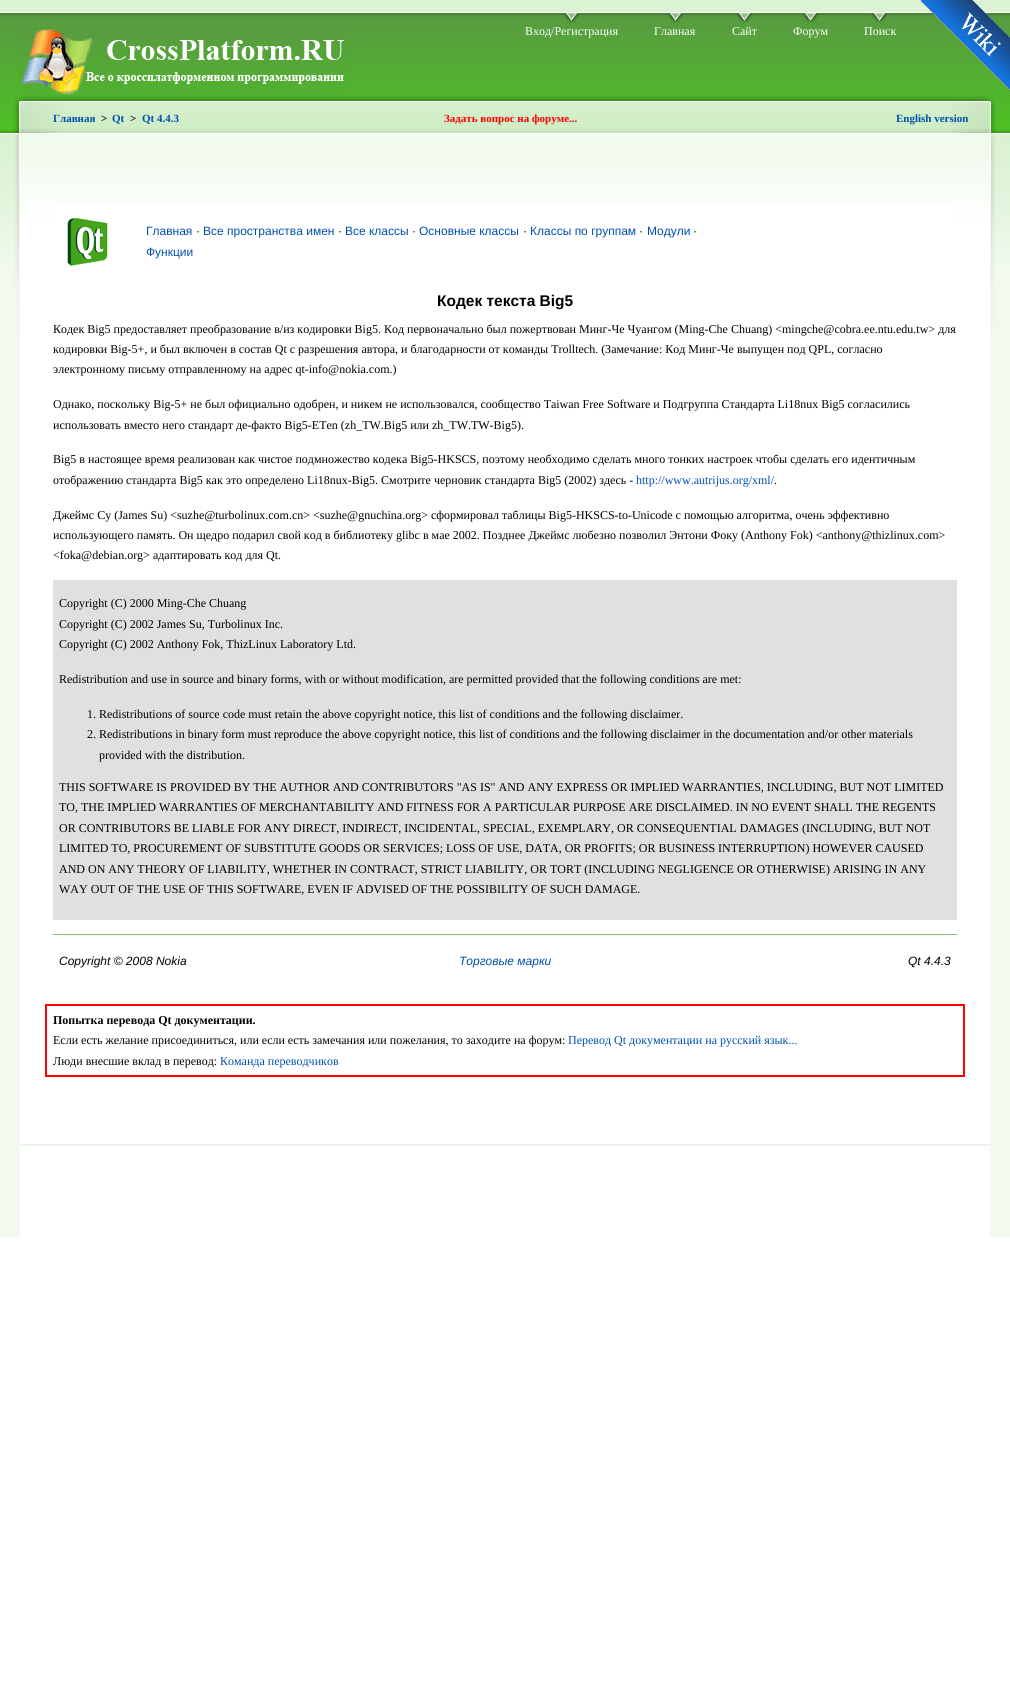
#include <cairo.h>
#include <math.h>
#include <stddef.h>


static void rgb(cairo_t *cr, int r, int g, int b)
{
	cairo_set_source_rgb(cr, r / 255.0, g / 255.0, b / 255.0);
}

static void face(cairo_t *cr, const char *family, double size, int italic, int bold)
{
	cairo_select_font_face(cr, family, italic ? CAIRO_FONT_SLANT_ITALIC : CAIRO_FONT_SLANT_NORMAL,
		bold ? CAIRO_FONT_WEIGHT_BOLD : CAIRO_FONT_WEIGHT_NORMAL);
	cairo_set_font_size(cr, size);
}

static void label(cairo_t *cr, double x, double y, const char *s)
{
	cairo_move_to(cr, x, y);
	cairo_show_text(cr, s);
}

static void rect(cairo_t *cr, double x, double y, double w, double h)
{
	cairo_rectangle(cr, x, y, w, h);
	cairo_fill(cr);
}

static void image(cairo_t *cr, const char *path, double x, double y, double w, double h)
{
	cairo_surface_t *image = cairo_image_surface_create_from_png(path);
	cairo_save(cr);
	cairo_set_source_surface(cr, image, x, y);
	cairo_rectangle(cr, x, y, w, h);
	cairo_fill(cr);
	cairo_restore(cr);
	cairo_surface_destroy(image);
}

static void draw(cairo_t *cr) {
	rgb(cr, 255, 255, 255);
	cairo_paint(cr);
	rgb(cr, 223, 244, 216);
	rect(cr, 0, 0, 1010, 1);
	rgb(cr, 219, 242, 211);
	rect(cr, 0, 1, 1010, 11);
	image(cr, "image1.png", 0, 12, 1010, 251);
	image(cr, "image0.png", 921, 0, 89, 90);
	rgb(cr, 242, 250, 239);
	rect(cr, 0, 263, 1010, 974);
	image(cr, "image4.png", 20, 92, 970, 112);
	image(cr, "image2.png", 20, 29, 326, 66);
	image(cr, "image3.png", 563, 13, 17, 10);
	face(cr, "Liberation Serif", 12, 0, 0);
	rgb(cr, 255, 255, 255);
	label(cr, 525, 35, "Вход/Регистрация");
	image(cr, "image3.png", 667, 13, 17, 10);
	label(cr, 654, 35, "Главная");
	image(cr, "image3.png", 736, 13, 17, 10);
	label(cr, 732, 35, "Сайт");
	image(cr, "image3.png", 802, 13, 17, 10);
	label(cr, 793, 35, "Форум");
	image(cr, "image3.png", 871, 13, 17, 10);
	label(cr, 864, 35, "Поиск");
	rect(cr, 20, 204, 970, 1033);
	image(cr, "image5.png", 952, 96, 44, 235);
	image(cr, "image6.png", 13, 96, 44, 237);
	face(cr, "Liberation Serif", 11, 0, 1);
	rgb(cr, 0, 79, 175);
	label(cr, 53, 122, "Главная");
	rgb(cr, 0, 0, 0);
	label(cr, 101, 122, ">");
	rgb(cr, 0, 79, 175);
	label(cr, 112, 122, "Qt");
	rgb(cr, 0, 0, 0);
	label(cr, 130, 122, ">");
	rgb(cr, 0, 79, 175);
	label(cr, 142, 122, "Qt 4.4.3");
	rgb(cr, 255, 0, 0);
	label(cr, 444, 122, "Задать вопрос на форуме...");
	rgb(cr, 0, 79, 175);
	label(cr, 896, 122, "English version");
	rgb(cr, 237, 244, 235);
	rect(cr, 19, 1144, 972, 2);
	image(cr, "image7.png", 67, 218, 41, 48);
	face(cr, "Liberation Sans", 12, 0, 0);
	rgb(cr, 0, 79, 175);
	label(cr, 146, 235, "Главная");
	rgb(cr, 0, 0, 0);
	label(cr, 196, 235, "·");
	rgb(cr, 0, 79, 175);
	label(cr, 203, 235, "Все пространства имен");
	rgb(cr, 0, 0, 0);
	label(cr, 338, 235, "·");
	rgb(cr, 0, 79, 175);
	label(cr, 345, 235, "Все классы");
	rgb(cr, 0, 0, 0);
	label(cr, 412, 235, "·");
	rgb(cr, 0, 79, 175);
	label(cr, 419, 235, "Основные классы");
	rgb(cr, 0, 0, 0);
	label(cr, 523, 235, "·");
	rgb(cr, 0, 79, 175);
	label(cr, 530, 235, "Классы по группам");
	rgb(cr, 0, 0, 0);
	label(cr, 639, 235, "·");
	rgb(cr, 0, 79, 175);
	label(cr, 647, 235, "Модули");
	rgb(cr, 0, 0, 0);
	label(cr, 693, 235, "·");
	rgb(cr, 0, 79, 175);
	label(cr, 146, 256, "Функции");
	face(cr, "Liberation Sans", 15.5, 0, 1);
	rgb(cr, 0, 0, 0);
	label(cr, 437, 306, "Кодек текста Big5");
	face(cr, "Liberation Serif", 12, 0, 0);
	label(cr, 53, 333, "Кодек Big5 предоставляет преобразование в/из кодировки Big5. Код первоначально был пожертвован Минг-Че Чуангом (Ming-Che Chuang) <mingche@cobra.ee.ntu.edu.tw> для");
	label(cr, 53, 353, "кодировки Big-5+, и был включен в состав Qt с разрешения автора, и благодарности от команды Trolltech. (Замечание: Код Минг-Че выпущен под QPL, согласно");
	label(cr, 53, 373, "электронному письму отправленному на адрес qt-info@nokia.com.)");
	label(cr, 53, 408, "Однако, поскольку Big-5+ не был официально одобрен, и никем не использовался, сообщество Taiwan Free Software и Подгруппа Стандарта Li18nux Big5 согласились");
	label(cr, 53, 429, "использовать вместо него стандарт де-факто Big5-ETen (zh_TW.Big5 или zh_TW.TW-Big5).");
	label(cr, 53, 463, "Big5 в настоящее время реализован как чистое подмножество кодека Big5-HKSCS, поэтому необходимо сделать много тонких настроек чтобы сделать его идентичным");
	label(cr, 53, 484, "отображению стандарта Big5 как это определено Li18nux-Big5. Смотрите черновик стандарта Big5 (2002) здесь -");
	rgb(cr, 0, 79, 175);
	label(cr, 636, 484, "http://www.autrijus.org/xml/");
	rgb(cr, 0, 0, 0);
	label(cr, 774, 484, ".");
	label(cr, 53, 519, "Джеймс Су (James Su) <suzhe@turbolinux.com.cn> <suzhe@gnuchina.org> сформировал таблицы Big5-HKSCS-to-Unicode с помощью алгоритма, очень эффективно");
	label(cr, 53, 539, "использующего память. Он щедро подарил свой код в библиотеку glibc в мае 2002. Позднее Джеймс любезно позволил Энтони Фоку (Anthony Fok) <anthony@thizlinux.com>");
	label(cr, 53, 559, "<foka@debian.org> адаптировать код для Qt.");
	rgb(cr, 224, 224, 224);
	rect(cr, 53, 580, 904, 340);
	rgb(cr, 0, 0, 0);
	label(cr, 59, 607, "Copyright (C) 2000 Ming-Che Chuang");
	label(cr, 59, 628, "Copyright (C) 2002 James Su, Turbolinux Inc.");
	label(cr, 59, 648, "Copyright (C) 2002 Anthony Fok, ThizLinux Laboratory Ltd.");
	label(cr, 59, 683, "Redistribution and use in source and binary forms, with or without modification, are permitted provided that the following conditions are met:");
	label(cr, 87, 718, "1. Redistributions of source code must retain the above copyright notice, this list of conditions and the following disclaimer.");
	label(cr, 87, 738, "2. Redistributions in binary form must reproduce the above copyright notice, this list of conditions and the following disclaimer in the documentation and/or other materials");
	label(cr, 99, 759, "provided with the distribution.");
	label(cr, 59, 791, "THIS SOFTWARE IS PROVIDED BY THE AUTHOR AND CONTRIBUTORS \"AS IS\" AND ANY EXPRESS OR IMPLIED WARRANTIES, INCLUDING, BUT NOT LIMITED");
	label(cr, 59, 811, "TO, THE IMPLIED WARRANTIES OF MERCHANTABILITY AND FITNESS FOR A PARTICULAR PURPOSE ARE DISCLAIMED. IN NO EVENT SHALL THE REGENTS");
	label(cr, 59, 832, "OR CONTRIBUTORS BE LIABLE FOR ANY DIRECT, INDIRECT, INCIDENTAL, SPECIAL, EXEMPLARY, OR CONSEQUENTIAL DAMAGES (INCLUDING, BUT NOT");
	label(cr, 59, 852, "LIMITED TO, PROCUREMENT OF SUBSTITUTE GOODS OR SERVICES; LOSS OF USE, DATA, OR PROFITS; OR BUSINESS INTERRUPTION) HOWEVER CAUSED");
	label(cr, 59, 873, "AND ON ANY THEORY OF LIABILITY, WHETHER IN CONTRACT, STRICT LIABILITY, OR TORT (INCLUDING NEGLIGENCE OR OTHERWISE) ARISING IN ANY");
	label(cr, 59, 893, "WAY OUT OF THE USE OF THIS SOFTWARE, EVEN IF ADVISED OF THE POSSIBILITY OF SUCH DAMAGE.");
	rgb(cr, 128, 200, 105);
	rect(cr, 53, 934, 904, 1);
	face(cr, "Liberation Sans", 12, 1, 0);
	rgb(cr, 0, 0, 0);
	label(cr, 59, 965, "Copyright © 2008 Nokia");
	rgb(cr, 0, 79, 175);
	label(cr, 459, 965, "Торговые марки");
	rgb(cr, 0, 0, 0);
	label(cr, 908, 965, "Qt 4.4.3");
	cairo_rectangle(cr, 45.5, 1004.5, 919, 72);
	rgb(cr, 255, 0, 0);
	cairo_set_line_width(cr, 1);
	cairo_stroke(cr);
	cairo_rectangle(cr, 46.5, 1005.5, 917, 70);
	cairo_stroke(cr);
	face(cr, "Liberation Serif", 12, 0, 1);
	rgb(cr, 0, 0, 0);
	label(cr, 53, 1024, "Попытка перевода Qt документации.");
	face(cr, "Liberation Serif", 12, 0, 0);
	label(cr, 53, 1044, "Если есть желание присоединиться, или если есть замечания или пожелания, то заходите на форум:");
	rgb(cr, 0, 79, 175);
	label(cr, 568, 1044, "Перевод Qt документации на русский язык...");
	rgb(cr, 0, 0, 0);
	label(cr, 53, 1065, "Люди внесшие вклад в перевод:");
	rgb(cr, 0, 79, 175);
	label(cr, 220, 1065, "Команда переводчиков");
}

int main(void) {
	cairo_surface_t *surface = cairo_image_surface_create(CAIRO_FORMAT_RGB24, 1010, 1704);
	cairo_t *cr = cairo_create(surface);
	cairo_font_options_t *options = cairo_font_options_create();
	cairo_font_options_set_hint_metrics(options, CAIRO_HINT_METRICS_OFF);
	cairo_font_options_set_hint_style(options, CAIRO_HINT_STYLE_NONE);
	cairo_set_font_options(cr, options);
	cairo_set_miter_limit(cr, 4);
	draw(cr);
	cairo_surface_write_to_png(surface, "render.png");
	cairo_font_options_destroy(options);
	cairo_destroy(cr);
	cairo_surface_destroy(surface);
	return 0;
}
